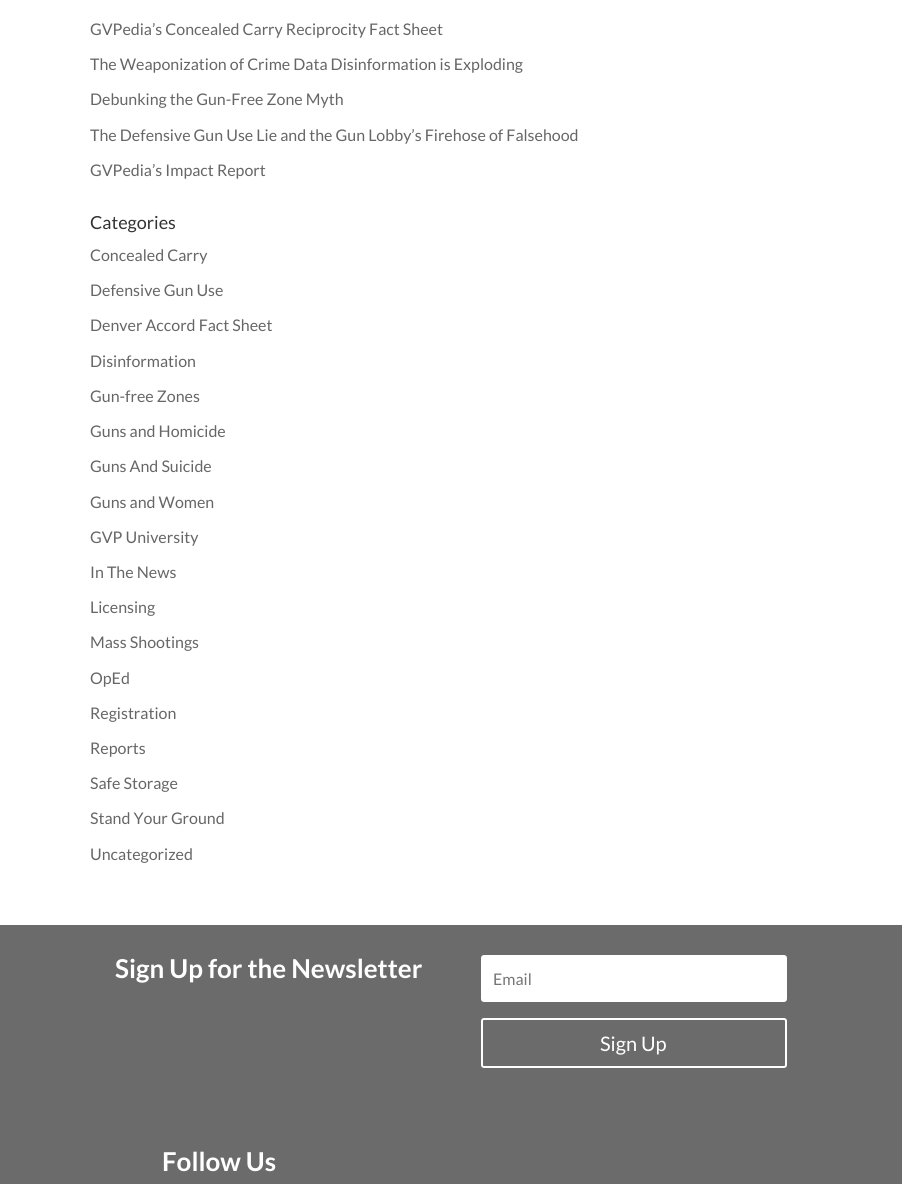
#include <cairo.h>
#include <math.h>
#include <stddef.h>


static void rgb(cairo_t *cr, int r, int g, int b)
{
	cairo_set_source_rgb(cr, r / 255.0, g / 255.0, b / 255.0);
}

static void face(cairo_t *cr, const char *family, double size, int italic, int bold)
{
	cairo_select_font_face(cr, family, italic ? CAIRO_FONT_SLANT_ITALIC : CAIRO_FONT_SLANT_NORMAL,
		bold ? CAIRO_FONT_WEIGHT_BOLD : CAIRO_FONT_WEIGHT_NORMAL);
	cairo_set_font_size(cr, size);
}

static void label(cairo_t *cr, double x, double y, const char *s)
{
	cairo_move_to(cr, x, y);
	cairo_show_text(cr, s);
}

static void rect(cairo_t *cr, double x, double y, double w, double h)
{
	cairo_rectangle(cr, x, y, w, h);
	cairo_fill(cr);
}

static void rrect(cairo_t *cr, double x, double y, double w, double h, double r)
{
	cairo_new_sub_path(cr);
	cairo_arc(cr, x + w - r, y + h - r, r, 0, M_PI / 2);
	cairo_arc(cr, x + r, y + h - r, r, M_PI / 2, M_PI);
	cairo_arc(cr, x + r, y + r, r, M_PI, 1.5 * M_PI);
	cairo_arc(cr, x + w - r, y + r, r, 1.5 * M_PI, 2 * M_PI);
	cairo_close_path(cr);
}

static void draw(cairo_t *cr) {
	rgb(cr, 255, 255, 255);
	cairo_paint(cr);
	face(cr, "Lato", 16, 0, 0);
	rgb(cr, 102, 102, 102);
	label(cr, 90, 35, "GVPedia’s Concealed Carry Reciprocity Fact Sheet");
	label(cr, 90, 70, "The Weaponization of Crime Data Disinformation is Exploding");
	label(cr, 90, 105, "Debunking the Gun-Free Zone Myth");
	label(cr, 90, 141, "The Defensive Gun Use Lie and the Gun Lobby’s Firehose of Falsehood");
	label(cr, 90, 176, "GVPedia’s Impact Report");
	face(cr, "Lato", 18, 0, 0);
	rgb(cr, 51, 51, 51);
	label(cr, 90, 229, "Categories");
	face(cr, "Lato", 16, 0, 0);
	rgb(cr, 102, 102, 102);
	label(cr, 90, 261, "Concealed Carry");
	label(cr, 90, 296, "Defensive Gun Use");
	label(cr, 90, 331, "Denver Accord Fact Sheet");
	label(cr, 90, 367, "Disinformation");
	label(cr, 90, 402, "Gun-free Zones");
	label(cr, 90, 437, "Guns and Homicide");
	label(cr, 90, 472, "Guns And Suicide");
	label(cr, 90, 508, "Guns and Women");
	label(cr, 90, 543, "GVP University");
	label(cr, 90, 578, "In The News");
	label(cr, 90, 613, "Licensing");
	label(cr, 90, 648, "Mass Shootings");
	label(cr, 90, 684, "OpEd");
	label(cr, 90, 719, "Registration");
	label(cr, 90, 754, "Reports");
	label(cr, 90, 789, "Safe Storage");
	label(cr, 90, 824, "Stand Your Ground");
	label(cr, 90, 860, "Uncategorized");
	rgb(cr, 107, 107, 107);
	rect(cr, 0, 925, 902, 259);
	face(cr, "Lato", 26, 0, 1);
	rgb(cr, 255, 255, 255);
	label(cr, 115, 978, "Sign Up for the Newsletter");
	rrect(cr, 481, 955, 306, 47, 3);
	cairo_fill(cr);
	face(cr, "Lato", 16, 0, 0);
	rgb(cr, 117, 117, 117);
	label(cr, 493, 985, "Email");
	rrect(cr, 482, 1019, 304, 48, 2);
	rgb(cr, 255, 255, 255);
	cairo_stroke(cr);
	face(cr, "Lato", 20, 0, 0);
	label(cr, 600, 1051, "Sign Up");
	face(cr, "Lato", 26, 0, 1);
	label(cr, 162, 1171, "Follow Us");
}

int main(void) {
	cairo_surface_t *surface = cairo_image_surface_create(CAIRO_FORMAT_RGB24, 902, 1184);
	cairo_t *cr = cairo_create(surface);
	cairo_font_options_t *options = cairo_font_options_create();
	cairo_font_options_set_hint_metrics(options, CAIRO_HINT_METRICS_OFF);
	cairo_font_options_set_hint_style(options, CAIRO_HINT_STYLE_NONE);
	cairo_set_font_options(cr, options);
	cairo_set_miter_limit(cr, 4);
	draw(cr);
	cairo_surface_write_to_png(surface, "render.png");
	cairo_font_options_destroy(options);
	cairo_destroy(cr);
	cairo_surface_destroy(surface);
	return 0;
}
